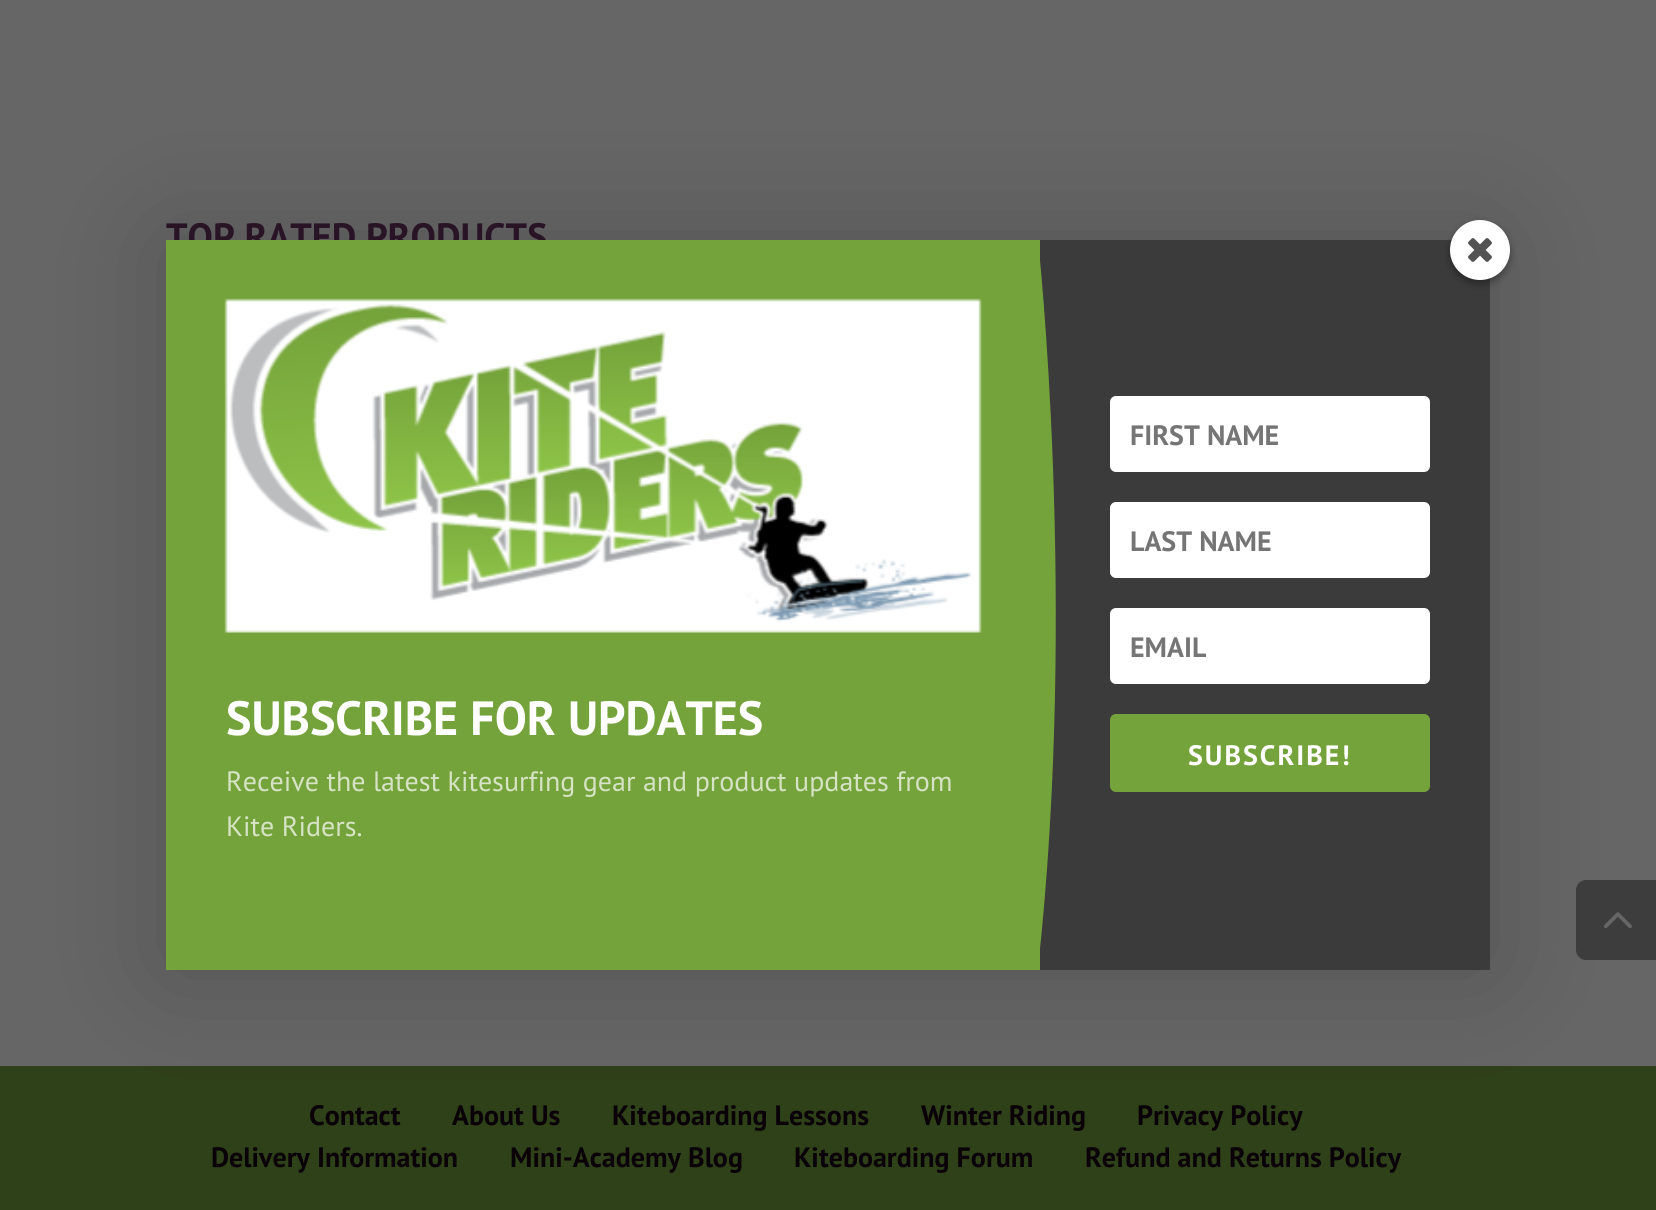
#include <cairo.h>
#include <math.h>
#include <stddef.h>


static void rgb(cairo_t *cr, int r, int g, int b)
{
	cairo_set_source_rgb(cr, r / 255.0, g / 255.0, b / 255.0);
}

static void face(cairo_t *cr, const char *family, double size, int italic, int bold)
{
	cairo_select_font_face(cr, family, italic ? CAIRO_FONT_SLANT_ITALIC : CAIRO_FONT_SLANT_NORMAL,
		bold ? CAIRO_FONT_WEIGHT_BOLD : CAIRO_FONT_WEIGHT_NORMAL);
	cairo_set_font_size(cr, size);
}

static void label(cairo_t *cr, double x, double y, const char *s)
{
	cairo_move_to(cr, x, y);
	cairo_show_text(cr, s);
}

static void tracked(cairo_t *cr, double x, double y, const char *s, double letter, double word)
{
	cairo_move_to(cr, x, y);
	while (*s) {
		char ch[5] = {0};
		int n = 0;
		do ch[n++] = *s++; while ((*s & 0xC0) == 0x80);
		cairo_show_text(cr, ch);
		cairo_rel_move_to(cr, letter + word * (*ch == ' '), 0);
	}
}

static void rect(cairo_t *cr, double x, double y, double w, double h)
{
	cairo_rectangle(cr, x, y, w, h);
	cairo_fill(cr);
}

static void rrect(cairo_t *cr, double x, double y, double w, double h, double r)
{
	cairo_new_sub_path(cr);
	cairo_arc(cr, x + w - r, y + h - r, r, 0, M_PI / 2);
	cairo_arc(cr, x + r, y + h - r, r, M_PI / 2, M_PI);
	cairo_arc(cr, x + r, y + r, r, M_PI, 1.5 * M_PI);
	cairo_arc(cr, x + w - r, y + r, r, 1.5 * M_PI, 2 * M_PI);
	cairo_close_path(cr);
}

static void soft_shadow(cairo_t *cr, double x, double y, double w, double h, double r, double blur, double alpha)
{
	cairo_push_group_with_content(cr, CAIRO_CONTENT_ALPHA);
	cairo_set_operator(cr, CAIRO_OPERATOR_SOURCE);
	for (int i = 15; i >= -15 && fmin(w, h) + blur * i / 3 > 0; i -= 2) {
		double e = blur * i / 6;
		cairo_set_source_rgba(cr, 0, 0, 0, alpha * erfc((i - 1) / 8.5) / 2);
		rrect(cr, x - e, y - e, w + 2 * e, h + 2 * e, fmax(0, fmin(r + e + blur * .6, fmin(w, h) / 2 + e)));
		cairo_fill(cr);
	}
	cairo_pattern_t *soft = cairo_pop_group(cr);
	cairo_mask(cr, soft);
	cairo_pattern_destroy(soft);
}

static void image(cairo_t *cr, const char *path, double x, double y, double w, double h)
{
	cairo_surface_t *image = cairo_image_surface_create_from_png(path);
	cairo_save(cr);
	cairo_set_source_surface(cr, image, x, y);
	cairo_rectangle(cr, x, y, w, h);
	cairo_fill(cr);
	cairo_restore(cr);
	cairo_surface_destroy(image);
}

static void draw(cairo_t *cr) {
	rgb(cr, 102, 102, 102);
	cairo_paint(cr);
	face(cr, "PT Sans", 38, 0, 1);
	rgb(cr, 44, 22, 41);
	label(cr, 166, 250, "TOP RATED PRODUCTS");
	rgb(cr, 47, 65, 24);
	rect(cr, 0, 1066, 1656, 144);
	face(cr, "PT Sans", 28, 0, 1);
	rgb(cr, 10, 1, 8);
	label(cr, 309, 1125, "Contact");
	label(cr, 452, 1125, "About Us");
	label(cr, 612, 1125, "Kiteboarding Lessons");
	label(cr, 921, 1125, "Winter Riding");
	label(cr, 1137, 1125, "Privacy Policy");
	label(cr, 211, 1167, "Delivery Information");
	label(cr, 510, 1167, "Mini-Academy Blog");
	label(cr, 794, 1167, "Kiteboarding Forum");
	label(cr, 1085, 1167, "Refund and Returns Policy");
	rgb(cr, 61, 61, 61);
	cairo_new_path(cr);
	cairo_move_to(cr, 1586, 880);
	cairo_line_to(cr, 1656, 880);
	cairo_line_to(cr, 1656, 960);
	cairo_line_to(cr, 1586, 960);
	cairo_curve_to(cr, 1580.5, 960, 1576, 955.5, 1576, 950);
	cairo_line_to(cr, 1576, 890);
	cairo_curve_to(cr, 1576, 884.5, 1580.5, 880, 1586, 880);
	cairo_close_path(cr);
	cairo_fill(cr);
	image(cr, "image0.png", 1603, 912, 29, 17);
	rgb(cr, 0, 0, 0);
	soft_shadow(cr, 166, 240, 1324, 730, 0, 60, 0.2);
	rgb(cr, 59, 59, 59);
	rect(cr, 1040, 240, 450, 730);
	rgb(cr, 0, 0, 0);
	soft_shadow(cr, 1450, 224, 60, 60, 30, 4, 0.34);
	rgb(cr, 255, 255, 255);
	cairo_arc(cr, 1480, 250, 30, 0, 2 * M_PI);
	cairo_fill(cr);
	image(cr, "image1.png", 1468, 238, 24, 24);
	rgb(cr, 117, 163, 59);
	rect(cr, 166, 240, 874, 730);
	image(cr, "image2.png", 224, 298, 758, 335);
	face(cr, "PT Sans", 48, 0, 1);
	rgb(cr, 255, 255, 255);
	label(cr, 226, 735, "SUBSCRIBE FOR UPDATES");
	face(cr, "PT Sans", 28, 0, 0);
	rgb(cr, 214, 227, 196);
	label(cr, 226, 791, "Receive the latest kitesurfing gear and product updates from");
	label(cr, 226, 836, "Kite Riders.");
	rgb(cr, 117, 163, 59);
	cairo_new_path(cr);
	cairo_move_to(cr, 1038, 240);
	cairo_curve_to(cr, 1038, 240, 1078, 604, 1038, 968);
	cairo_close_path(cr);
	cairo_fill(cr);
	rgb(cr, 255, 255, 255);
	rrect(cr, 1110, 396, 320, 76, 6);
	cairo_fill(cr);
	face(cr, "PT Sans", 28, 0, 1);
	rgb(cr, 117, 117, 117);
	label(cr, 1130, 445, "FIRST NAME");
	rgb(cr, 255, 255, 255);
	rrect(cr, 1110, 502, 320, 76, 6);
	cairo_fill(cr);
	rgb(cr, 117, 117, 117);
	label(cr, 1130, 551, "LAST NAME");
	rgb(cr, 255, 255, 255);
	rrect(cr, 1110, 608, 320, 76, 6);
	cairo_fill(cr);
	rgb(cr, 117, 117, 117);
	label(cr, 1130, 657, "EMAIL");
	rgb(cr, 117, 163, 59);
	rrect(cr, 1110, 714, 320, 78, 6);
	cairo_fill(cr);
	rgb(cr, 255, 255, 255);
	tracked(cr, 1188, 765, "SUBSCRIBE!", 2, 0);
}

int main(void) {
	cairo_surface_t *surface = cairo_image_surface_create(CAIRO_FORMAT_RGB24, 1656, 1210);
	cairo_t *cr = cairo_create(surface);
	cairo_font_options_t *options = cairo_font_options_create();
	cairo_font_options_set_hint_metrics(options, CAIRO_HINT_METRICS_OFF);
	cairo_font_options_set_hint_style(options, CAIRO_HINT_STYLE_NONE);
	cairo_set_font_options(cr, options);
	cairo_set_miter_limit(cr, 4);
	draw(cr);
	cairo_surface_write_to_png(surface, "render.png");
	cairo_font_options_destroy(options);
	cairo_destroy(cr);
	cairo_surface_destroy(surface);
	return 0;
}
